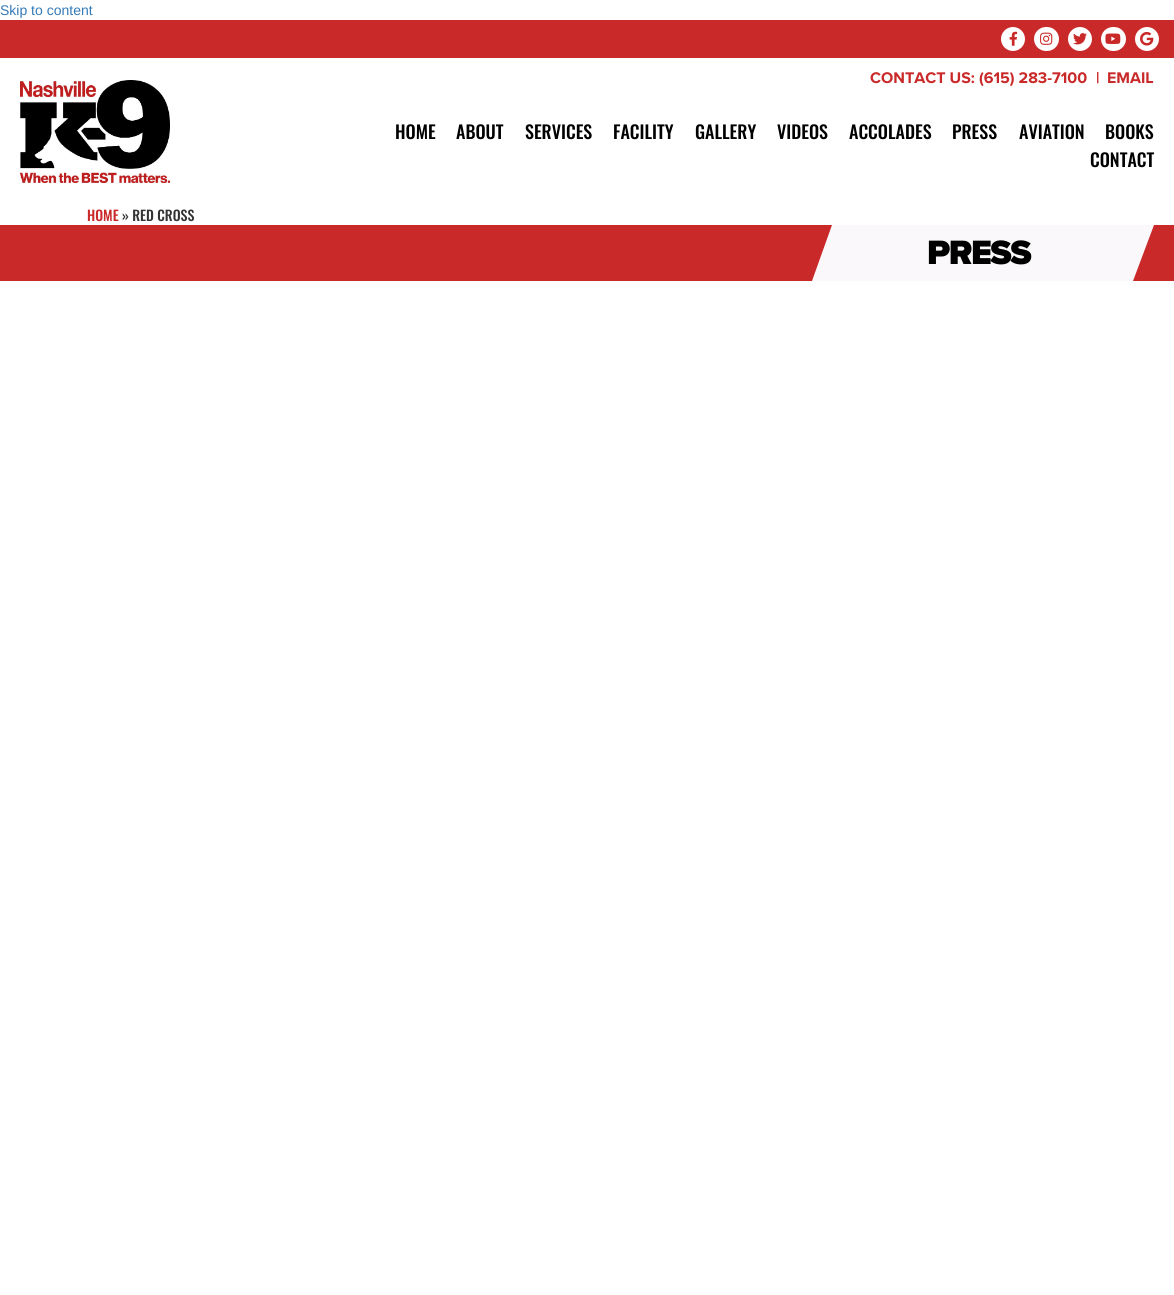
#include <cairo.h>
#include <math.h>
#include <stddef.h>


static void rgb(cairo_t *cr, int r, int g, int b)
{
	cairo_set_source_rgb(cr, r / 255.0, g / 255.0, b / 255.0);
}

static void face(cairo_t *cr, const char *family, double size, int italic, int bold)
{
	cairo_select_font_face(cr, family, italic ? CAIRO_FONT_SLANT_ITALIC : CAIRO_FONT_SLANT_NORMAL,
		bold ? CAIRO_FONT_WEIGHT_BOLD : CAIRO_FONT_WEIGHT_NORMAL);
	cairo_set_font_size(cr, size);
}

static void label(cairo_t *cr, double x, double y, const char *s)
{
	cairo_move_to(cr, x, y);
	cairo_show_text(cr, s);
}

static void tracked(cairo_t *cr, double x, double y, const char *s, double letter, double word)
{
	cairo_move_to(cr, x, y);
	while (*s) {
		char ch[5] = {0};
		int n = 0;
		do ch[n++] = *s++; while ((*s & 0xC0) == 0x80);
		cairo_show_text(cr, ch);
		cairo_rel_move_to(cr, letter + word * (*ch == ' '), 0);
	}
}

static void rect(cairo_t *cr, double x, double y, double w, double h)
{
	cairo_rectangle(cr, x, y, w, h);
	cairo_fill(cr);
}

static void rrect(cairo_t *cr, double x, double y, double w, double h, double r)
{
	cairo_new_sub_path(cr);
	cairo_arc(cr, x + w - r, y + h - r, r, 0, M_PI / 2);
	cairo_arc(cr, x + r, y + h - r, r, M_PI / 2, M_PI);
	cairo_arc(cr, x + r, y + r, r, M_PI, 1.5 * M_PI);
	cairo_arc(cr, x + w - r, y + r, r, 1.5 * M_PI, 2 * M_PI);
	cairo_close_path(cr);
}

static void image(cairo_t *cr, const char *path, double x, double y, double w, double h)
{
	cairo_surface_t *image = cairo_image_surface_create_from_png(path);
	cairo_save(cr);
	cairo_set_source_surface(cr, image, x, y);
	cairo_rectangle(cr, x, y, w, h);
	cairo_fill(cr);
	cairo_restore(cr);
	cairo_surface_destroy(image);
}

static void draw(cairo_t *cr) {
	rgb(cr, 255, 255, 255);
	cairo_paint(cr);
	face(cr, "Liberation Sans", 14, 0, 0);
	rgb(cr, 51, 122, 183);
	label(cr, 0, 15, "Skip to content");
	rgb(cr, 202, 41, 41);
	rect(cr, 0, 20, 1174, 38);
	rgb(cr, 255, 255, 255);
	cairo_new_path(cr);
	cairo_arc(cr, 1013, 39, 12, 0, 2 * M_PI);
	cairo_fill(cr);
	image(cr, "image0.png", 1009, 31, 9, 15);
	rrect(cr, 1034, 27, 25, 24, 12);
	cairo_fill(cr);
	image(cr, "image1.png", 1040, 32, 13, 13);
	cairo_arc(cr, 1080, 39, 12, 0, 2 * M_PI);
	cairo_fill(cr);
	image(cr, "image2.png", 1073, 33, 14, 12);
	rrect(cr, 1101, 27, 25, 24, 12);
	cairo_fill(cr);
	image(cr, "image3.png", 1105, 33, 16, 11);
	cairo_arc(cr, 1147, 39, 12, 0, 2 * M_PI);
	cairo_fill(cr);
	image(cr, "image4.png", 1140, 32, 14, 14);
	image(cr, "image5.png", 20, 80, 150, 103);
	face(cr, "Proxima Nova", 16, 0, 1);
	rgb(cr, 202, 41, 41);
	label(cr, 870, 83, "CONTACT US: (615) 283-7100");
	label(cr, 1096, 83, "|");
	label(cr, 1107, 83, "EMAIL");
	face(cr, "Oswald Medium", 18, 0, 0);
	rgb(cr, 0, 0, 0);
	label(cr, 395, 139, "HOME");
	label(cr, 456, 139, "ABOUT");
	label(cr, 525, 139, "SERVICES");
	label(cr, 613, 139, "FACILITY");
	label(cr, 695, 139, "GALLERY");
	label(cr, 777, 139, "VIDEOS");
	label(cr, 849, 139, "ACCOLADES");
	label(cr, 952, 139, "PRESS");
	label(cr, 1019, 139, "AVIATION");
	label(cr, 1105, 139, "BOOKS");
	label(cr, 1090, 167, "CONTACT");
	face(cr, "Oswald Medium", 14, 0, 0);
	rgb(cr, 202, 41, 41);
	label(cr, 87, 221, "HOME");
	rgb(cr, 51, 51, 51);
	label(cr, 122, 221, "» RED CROSS");
	rgb(cr, 202, 41, 41);
	rect(cr, 0, 225, 1174, 56);
	rgb(cr, 250, 248, 250);
	cairo_new_path(cr);
	cairo_move_to(cr, 1154, 225);
	cairo_line_to(cr, 1133, 281);
	cairo_line_to(cr, 812, 281);
	cairo_line_to(cr, 832, 225);
	cairo_close_path(cr);
	cairo_fill(cr);
	face(cr, "Proxima Nova Black", 35, 0, 0);
	rgb(cr, 0, 0, 0);
	tracked(cr, 927, 264, "PRESS", -1.5, 0);
}

int main(void) {
	cairo_surface_t *surface = cairo_image_surface_create(CAIRO_FORMAT_RGB24, 1174, 1295);
	cairo_t *cr = cairo_create(surface);
	cairo_font_options_t *options = cairo_font_options_create();
	cairo_font_options_set_hint_metrics(options, CAIRO_HINT_METRICS_OFF);
	cairo_font_options_set_hint_style(options, CAIRO_HINT_STYLE_NONE);
	cairo_set_font_options(cr, options);
	cairo_set_miter_limit(cr, 4);
	draw(cr);
	cairo_surface_write_to_png(surface, "render.png");
	cairo_font_options_destroy(options);
	cairo_destroy(cr);
	cairo_surface_destroy(surface);
	return 0;
}
